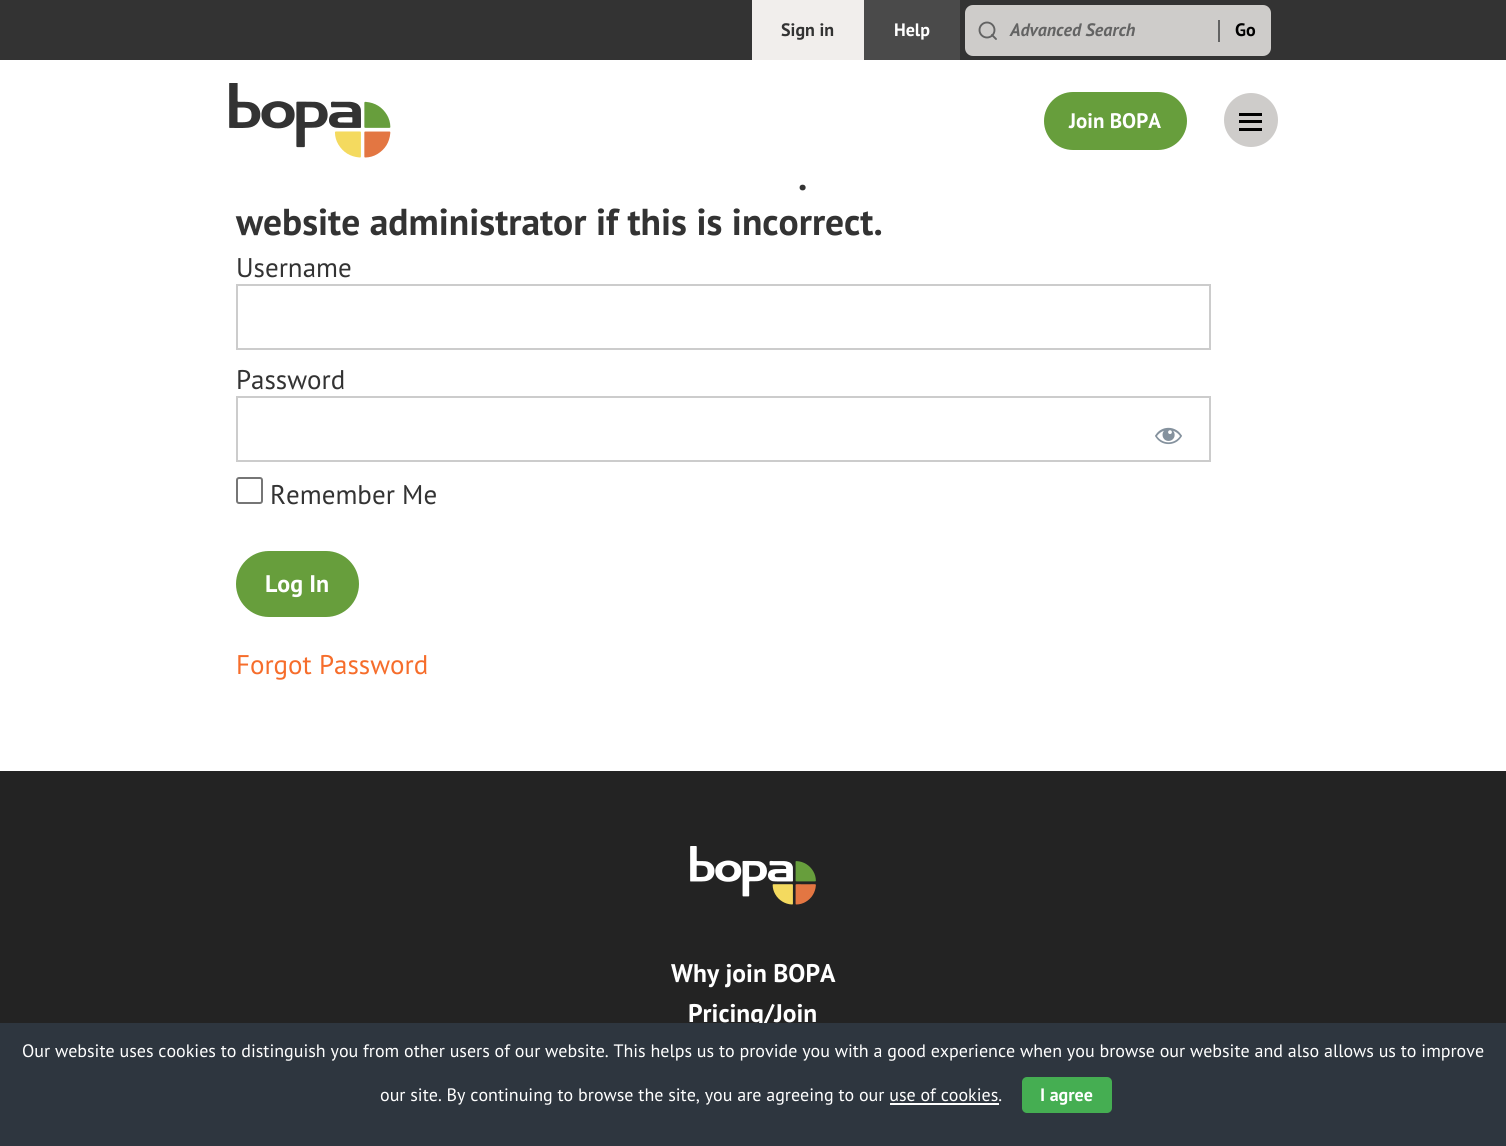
#include <cairo.h>
#include <math.h>
#include <stddef.h>


static void rgb(cairo_t *cr, int r, int g, int b)
{
	cairo_set_source_rgb(cr, r / 255.0, g / 255.0, b / 255.0);
}

static void face(cairo_t *cr, const char *family, double size, int italic, int bold)
{
	cairo_select_font_face(cr, family, italic ? CAIRO_FONT_SLANT_ITALIC : CAIRO_FONT_SLANT_NORMAL,
		bold ? CAIRO_FONT_WEIGHT_BOLD : CAIRO_FONT_WEIGHT_NORMAL);
	cairo_set_font_size(cr, size);
}

static void label(cairo_t *cr, double x, double y, const char *s)
{
	cairo_move_to(cr, x, y);
	cairo_show_text(cr, s);
}

static void rect(cairo_t *cr, double x, double y, double w, double h)
{
	cairo_rectangle(cr, x, y, w, h);
	cairo_fill(cr);
}

static void rrect(cairo_t *cr, double x, double y, double w, double h, double r)
{
	cairo_new_sub_path(cr);
	cairo_arc(cr, x + w - r, y + h - r, r, 0, M_PI / 2);
	cairo_arc(cr, x + r, y + h - r, r, M_PI / 2, M_PI);
	cairo_arc(cr, x + r, y + r, r, M_PI, 1.5 * M_PI);
	cairo_arc(cr, x + w - r, y + r, r, 1.5 * M_PI, 2 * M_PI);
	cairo_close_path(cr);
}

static void image(cairo_t *cr, const char *path, double x, double y, double w, double h)
{
	cairo_surface_t *image = cairo_image_surface_create_from_png(path);
	cairo_save(cr);
	cairo_set_source_surface(cr, image, x, y);
	cairo_rectangle(cr, x, y, w, h);
	cairo_fill(cr);
	cairo_restore(cr);
	cairo_surface_destroy(image);
}

static void draw(cairo_t *cr) {
	rgb(cr, 255, 255, 255);
	cairo_paint(cr);
	rgb(cr, 51, 51, 51);
	rect(cr, 0, 0, 1506, 60);
	rgb(cr, 241, 238, 236);
	rect(cr, 752, 0, 112, 60);
	face(cr, "PT Sans", 18, 0, 1);
	rgb(cr, 51, 51, 51);
	label(cr, 781, 36, "Sign in");
	rgb(cr, 74, 74, 74);
	rect(cr, 864, 0, 96, 60);
	rgb(cr, 255, 255, 255);
	label(cr, 894, 36, "Help");
	rgb(cr, 206, 204, 202);
	rrect(cr, 965, 5, 306, 51, 8);
	cairo_fill(cr);
	cairo_arc(cr, 987, 30, 7.5, 0, 2 * M_PI);
	rgb(cr, 99, 99, 99);
	cairo_set_line_width(cr, 1.9);
	cairo_stroke(cr);
	cairo_new_path(cr);
	cairo_move_to(cr, 996, 39);
	cairo_line_to(cr, 992, 35);
	cairo_set_line_cap(cr, CAIRO_LINE_CAP_ROUND);
	cairo_set_line_join(cr, CAIRO_LINE_JOIN_ROUND);
	cairo_stroke(cr);
	face(cr, "PT Sans", 18, 1, 1);
	label(cr, 1010, 36, "Advanced Search");
	rect(cr, 1218, 20, 2, 22);
	face(cr, "PT Sans", 18, 0, 1);
	rgb(cr, 0, 0, 0);
	label(cr, 1235, 36, "Go");
	image(cr, "image0.png", 229, 83, 162, 75);
	rgb(cr, 103, 158, 60);
	rrect(cr, 1045, 93, 141, 56, 28);
	cairo_fill_preserve(cr);
	cairo_set_line_width(cr, 2);
	cairo_set_line_cap(cr, CAIRO_LINE_CAP_BUTT);
	cairo_set_line_join(cr, CAIRO_LINE_JOIN_MITER);
	cairo_stroke(cr);
	face(cr, "PT Sans", 21, 0, 1);
	rgb(cr, 255, 255, 255);
	label(cr, 1069, 128, "Join BOPA");
	rgb(cr, 206, 204, 202);
	cairo_new_path(cr);
	cairo_arc(cr, 1251, 120, 27, 0, 2 * M_PI);
	cairo_fill(cr);
	rgb(cr, 0, 0, 0);
	rect(cr, 1239, 120, 23, 3);
	rect(cr, 1239, 113, 23, 3);
	rect(cr, 1239, 128, 23, 3);
	face(cr, "PT Sans", 37.5, 0, 1);
	rgb(cr, 51, 51, 51);
	label(cr, 798, 190, ".");
	label(cr, 236, 235, "website administrator if this is incorrect.");
	face(cr, "PT Sans", 27, 0, 0);
	label(cr, 236, 277, "Username");
	cairo_rectangle(cr, 237, 285, 973, 64);
	rgb(cr, 204, 204, 204);
	cairo_stroke(cr);
	rgb(cr, 51, 51, 51);
	label(cr, 236, 389, "Password");
	cairo_rectangle(cr, 237, 397, 973, 64);
	rgb(cr, 204, 204, 204);
	cairo_stroke(cr);
	image(cr, "image1.png", 1155, 427, 27, 18);
	rrect(cr, 237, 478, 25, 25, 2);
	rgb(cr, 118, 118, 118);
	cairo_stroke(cr);
	rgb(cr, 51, 51, 51);
	label(cr, 270, 504, "Remember Me");
	rgb(cr, 103, 158, 60);
	rrect(cr, 237, 552, 121, 64, 32);
	cairo_fill_preserve(cr);
	cairo_stroke(cr);
	face(cr, "PT Sans", 24, 0, 1);
	rgb(cr, 255, 255, 255);
	label(cr, 265, 592, "Log In");
	face(cr, "PT Sans", 27, 0, 0);
	rgb(cr, 246, 109, 43);
	label(cr, 236, 674, "Forgot Password");
	rgb(cr, 35, 35, 35);
	rect(cr, 0, 771, 1506, 252);
	image(cr, "image2.png", 690, 846, 126, 59);
	face(cr, "PT Sans", 25.5, 0, 1);
	rgb(cr, 255, 255, 255);
	label(cr, 671, 982, "Why join BOPA");
	label(cr, 688, 1022, "Pricing/Join");
	rgb(cr, 46, 54, 63);
	rect(cr, 0, 1023, 1506, 123);
	face(cr, "PT Sans", 18, 0, 0);
	rgb(cr, 255, 255, 255);
	label(cr, 22, 1057, "Our website uses cookies to distinguish you from other users of our website. This helps us to provide you with a good experience when you browse our website and also allows us to improve");
	label(cr, 380, 1101, "our site. By continuing to browse the site, you are agreeing to our use of cookies.");
	rgb(cr, 69, 174, 82);
	rrect(cr, 1022, 1077, 90, 36, 5);
	cairo_fill(cr);
	face(cr, "PT Sans", 18, 0, 1);
	rgb(cr, 255, 255, 255);
	label(cr, 1040, 1101, "I agree");
	rect(cr, 890, 1103, 109, 2);
}

int main(void) {
	cairo_surface_t *surface = cairo_image_surface_create(CAIRO_FORMAT_RGB24, 1506, 1146);
	cairo_t *cr = cairo_create(surface);
	cairo_font_options_t *options = cairo_font_options_create();
	cairo_font_options_set_hint_metrics(options, CAIRO_HINT_METRICS_OFF);
	cairo_font_options_set_hint_style(options, CAIRO_HINT_STYLE_NONE);
	cairo_set_font_options(cr, options);
	cairo_set_miter_limit(cr, 4);
	draw(cr);
	cairo_surface_write_to_png(surface, "render.png");
	cairo_font_options_destroy(options);
	cairo_destroy(cr);
	cairo_surface_destroy(surface);
	return 0;
}
